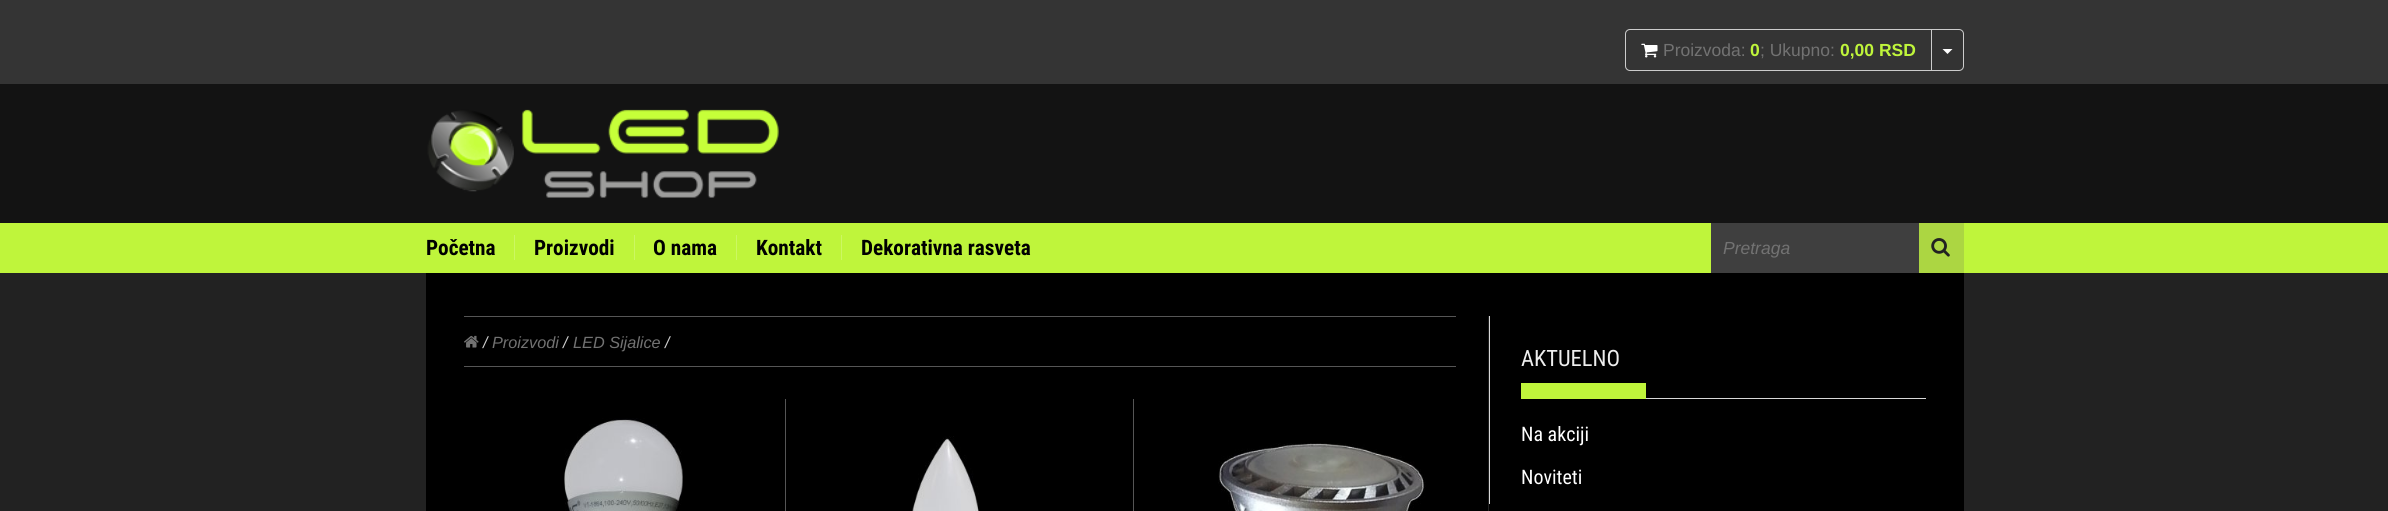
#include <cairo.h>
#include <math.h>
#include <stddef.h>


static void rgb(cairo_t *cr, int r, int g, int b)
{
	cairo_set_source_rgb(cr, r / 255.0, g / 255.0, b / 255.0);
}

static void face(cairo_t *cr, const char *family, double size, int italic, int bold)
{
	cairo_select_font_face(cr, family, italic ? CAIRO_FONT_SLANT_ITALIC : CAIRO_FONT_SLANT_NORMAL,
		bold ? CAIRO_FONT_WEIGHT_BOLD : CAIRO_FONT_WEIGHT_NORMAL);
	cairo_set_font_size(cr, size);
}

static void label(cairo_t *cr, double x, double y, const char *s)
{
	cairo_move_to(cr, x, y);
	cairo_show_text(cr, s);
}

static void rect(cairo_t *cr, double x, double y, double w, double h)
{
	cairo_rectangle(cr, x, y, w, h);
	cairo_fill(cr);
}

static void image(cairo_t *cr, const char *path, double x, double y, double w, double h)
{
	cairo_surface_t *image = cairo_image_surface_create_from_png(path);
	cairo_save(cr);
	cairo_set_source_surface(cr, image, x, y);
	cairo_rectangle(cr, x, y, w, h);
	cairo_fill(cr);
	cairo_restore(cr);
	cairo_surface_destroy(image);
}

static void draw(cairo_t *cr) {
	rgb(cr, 34, 34, 34);
	cairo_paint(cr);
	rgb(cr, 52, 52, 52);
	rect(cr, 0, 0, 2388, 84);
	cairo_new_path(cr);
	cairo_move_to(cr, 1630, 29.5);
	cairo_line_to(cr, 1932.5, 29.5);
	cairo_line_to(cr, 1932.5, 70.5);
	cairo_line_to(cr, 1630, 70.5);
	cairo_curve_to(cr, 1627.5, 70.5, 1625.5, 68.5, 1625.5, 66);
	cairo_line_to(cr, 1625.5, 34);
	cairo_curve_to(cr, 1625.5, 31.5, 1627.5, 29.5, 1630, 29.5);
	cairo_close_path(cr);
	rgb(cr, 204, 204, 204);
	cairo_set_line_width(cr, 1);
	cairo_stroke(cr);
	image(cr, "image0.png", 1641, 43, 17, 15);
	face(cr, "Liberation Sans", 17.5, 0, 0);
	rgb(cr, 114, 114, 114);
	label(cr, 1663, 56, "Proizvoda:");
	face(cr, "Liberation Sans", 17.5, 0, 1);
	rgb(cr, 191, 245, 59);
	label(cr, 1750, 56, "0");
	face(cr, "Liberation Sans", 17.5, 0, 0);
	rgb(cr, 114, 114, 114);
	label(cr, 1760, 56, "; Ukupno:");
	face(cr, "Liberation Sans", 17.5, 0, 1);
	rgb(cr, 191, 245, 59);
	label(cr, 1840, 56, "0,00 RSD");
	rgb(cr, 51, 51, 51);
	cairo_new_path(cr);
	cairo_move_to(cr, 1931.5, 29.5);
	cairo_line_to(cr, 1959, 29.5);
	cairo_curve_to(cr, 1961.5, 29.5, 1963.5, 31.5, 1963.5, 34);
	cairo_line_to(cr, 1963.5, 66);
	cairo_curve_to(cr, 1963.5, 68.5, 1961.5, 70.5, 1959, 70.5);
	cairo_line_to(cr, 1931.5, 70.5);
	cairo_close_path(cr);
	cairo_fill_preserve(cr);
	rgb(cr, 204, 204, 204);
	cairo_stroke(cr);
	rgb(cr, 255, 255, 255);
	cairo_new_path(cr);
	cairo_move_to(cr, 1942.5, 49);
	cairo_line_to(cr, 1952.5, 49);
	cairo_line_to(cr, 1947.5, 54);
	cairo_close_path(cr);
	cairo_fill(cr);
	rgb(cr, 19, 19, 19);
	rect(cr, 0, 84, 2388, 139);
	image(cr, "image1.png", 427, 109, 352, 89);
	rgb(cr, 191, 245, 59);
	rect(cr, 0, 223, 2388, 50);
	face(cr, "Roboto Condensed", 21.25, 0, 1);
	rgb(cr, 0, 0, 0);
	label(cr, 426, 255, "Početna");
	rgb(cr, 204, 247, 98);
	rect(cr, 514, 235, 1, 25);
	rgb(cr, 0, 0, 0);
	label(cr, 534, 255, "Proizvodi");
	rgb(cr, 204, 247, 98);
	rect(cr, 634, 235, 1, 25);
	rgb(cr, 0, 0, 0);
	label(cr, 653, 255, "O nama");
	rgb(cr, 204, 247, 98);
	rect(cr, 736, 235, 1, 25);
	rgb(cr, 0, 0, 0);
	label(cr, 756, 255, "Kontakt");
	rgb(cr, 204, 247, 98);
	rect(cr, 841, 235, 1, 25);
	rgb(cr, 0, 0, 0);
	label(cr, 861, 255, "Dekorativna rasveta");
	rgb(cr, 63, 63, 63);
	rect(cr, 1711, 223, 208, 50);
	face(cr, "Liberation Sans", 17.5, 1, 0);
	rgb(cr, 114, 114, 114);
	label(cr, 1723, 254, "Pretraga");
	rgb(cr, 172, 214, 66);
	rect(cr, 1919, 223, 45, 50);
	image(cr, "image2.png", 1931, 238, 19, 19);
	rgb(cr, 0, 0, 0);
	rect(cr, 426, 273, 1538, 238);
	rgb(cr, 34, 34, 34);
	rect(cr, 1488, 316, 1, 195);
	rgb(cr, 85, 85, 85);
	rect(cr, 464, 316, 992, 1);
	rect(cr, 464, 366, 992, 1);
	image(cr, "image3.png", 464, 335, 15, 13);
	face(cr, "Liberation Sans", 16.25, 1, 0);
	rgb(cr, 204, 204, 204);
	label(cr, 483, 348, "/");
	rgb(cr, 114, 114, 114);
	label(cr, 492, 348, "Proizvodi");
	rgb(cr, 204, 204, 204);
	label(cr, 563, 348, "/");
	rgb(cr, 114, 114, 114);
	label(cr, 573, 348, "LED Sijalice");
	rgb(cr, 204, 204, 204);
	label(cr, 665, 348, "/");
	image(cr, "image4.png", 564, 418, 119, 93);
	rgb(cr, 85, 85, 85);
	rect(cr, 785, 399, 1, 112);
	image(cr, "image5.png", 912, 436, 67, 75);
	rect(cr, 1133, 399, 1, 112);
	image(cr, "image6.png", 1218, 443, 208, 68);
	rgb(cr, 216, 216, 216);
	rect(cr, 1489, 316, 1, 188);
	rect(cr, 1646, 398, 280, 1);
	face(cr, "Roboto Condensed", 22.5, 0, 0);
	rgb(cr, 238, 238, 238);
	label(cr, 1521, 366, "AKTUELNO");
	rgb(cr, 191, 245, 59);
	rect(cr, 1521, 383, 125, 16);
	face(cr, "Roboto Condensed", 20, 0, 0);
	rgb(cr, 255, 255, 255);
	label(cr, 1521, 441, "Na akciji");
	label(cr, 1521, 484, "Noviteti");
}

int main(void) {
	cairo_surface_t *surface = cairo_image_surface_create(CAIRO_FORMAT_RGB24, 2388, 511);
	cairo_t *cr = cairo_create(surface);
	cairo_font_options_t *options = cairo_font_options_create();
	cairo_font_options_set_hint_metrics(options, CAIRO_HINT_METRICS_OFF);
	cairo_font_options_set_hint_style(options, CAIRO_HINT_STYLE_NONE);
	cairo_set_font_options(cr, options);
	cairo_set_miter_limit(cr, 4);
	draw(cr);
	cairo_surface_write_to_png(surface, "render.png");
	cairo_font_options_destroy(options);
	cairo_destroy(cr);
	cairo_surface_destroy(surface);
	return 0;
}
